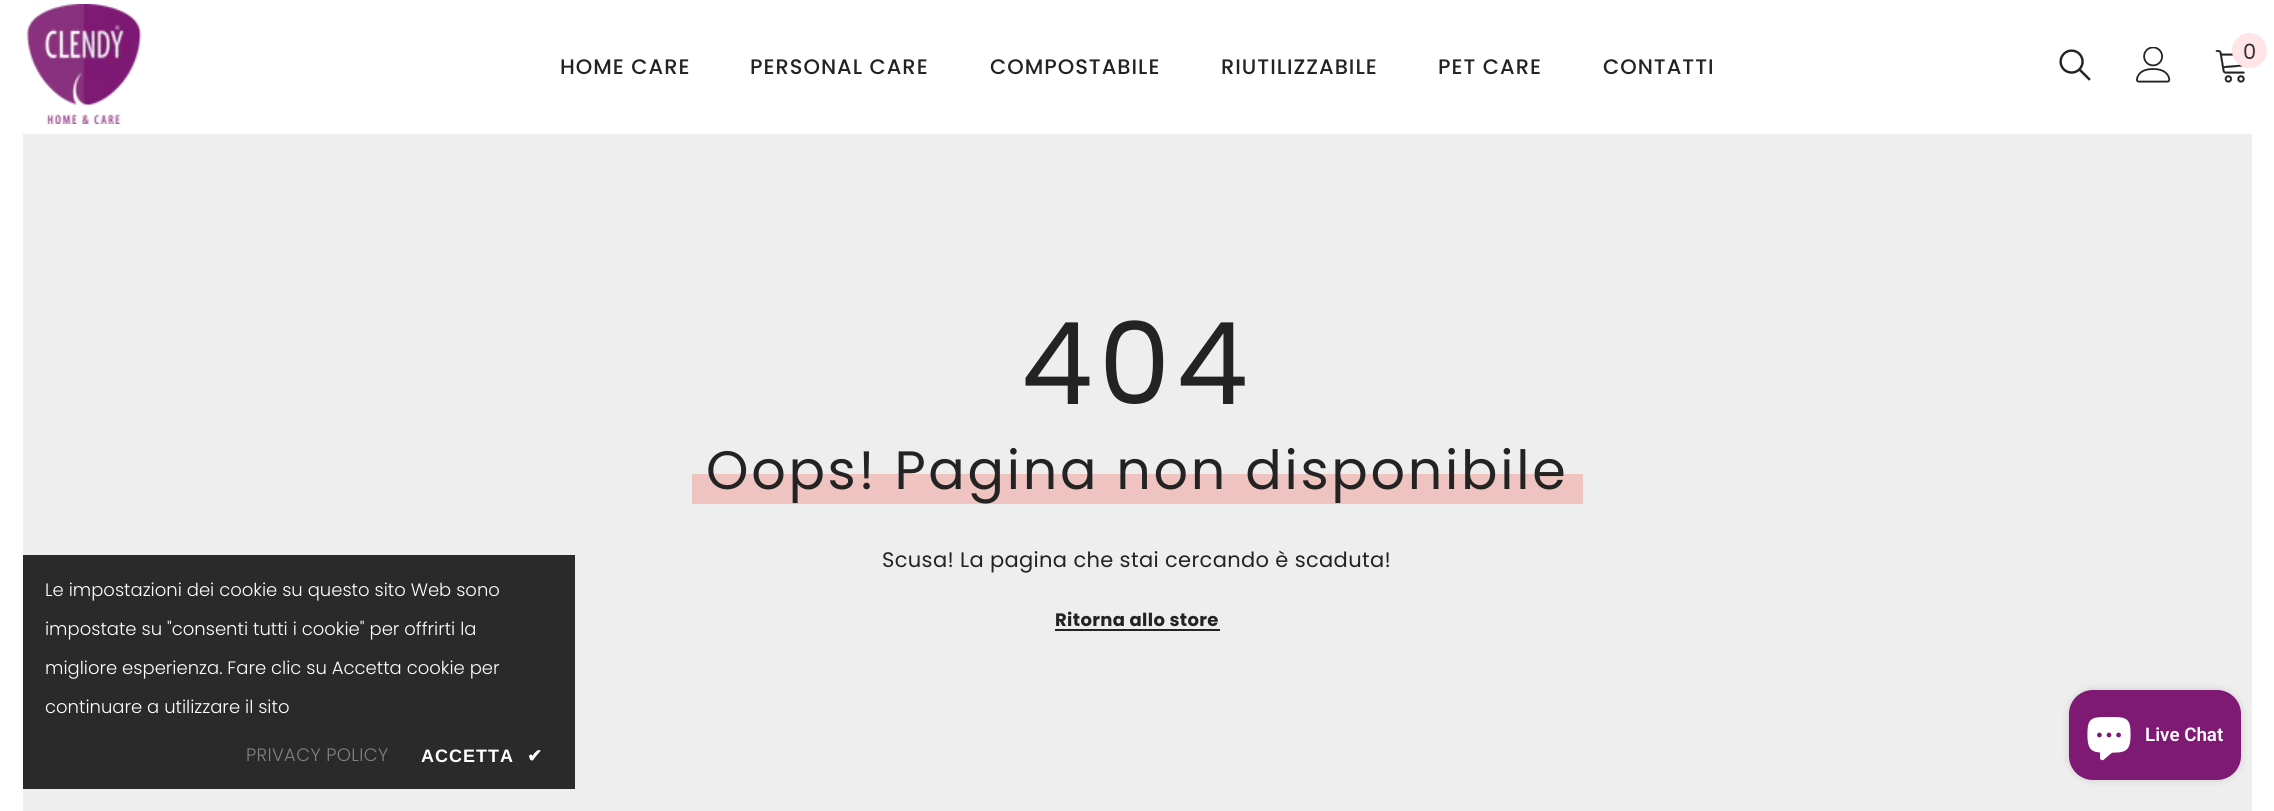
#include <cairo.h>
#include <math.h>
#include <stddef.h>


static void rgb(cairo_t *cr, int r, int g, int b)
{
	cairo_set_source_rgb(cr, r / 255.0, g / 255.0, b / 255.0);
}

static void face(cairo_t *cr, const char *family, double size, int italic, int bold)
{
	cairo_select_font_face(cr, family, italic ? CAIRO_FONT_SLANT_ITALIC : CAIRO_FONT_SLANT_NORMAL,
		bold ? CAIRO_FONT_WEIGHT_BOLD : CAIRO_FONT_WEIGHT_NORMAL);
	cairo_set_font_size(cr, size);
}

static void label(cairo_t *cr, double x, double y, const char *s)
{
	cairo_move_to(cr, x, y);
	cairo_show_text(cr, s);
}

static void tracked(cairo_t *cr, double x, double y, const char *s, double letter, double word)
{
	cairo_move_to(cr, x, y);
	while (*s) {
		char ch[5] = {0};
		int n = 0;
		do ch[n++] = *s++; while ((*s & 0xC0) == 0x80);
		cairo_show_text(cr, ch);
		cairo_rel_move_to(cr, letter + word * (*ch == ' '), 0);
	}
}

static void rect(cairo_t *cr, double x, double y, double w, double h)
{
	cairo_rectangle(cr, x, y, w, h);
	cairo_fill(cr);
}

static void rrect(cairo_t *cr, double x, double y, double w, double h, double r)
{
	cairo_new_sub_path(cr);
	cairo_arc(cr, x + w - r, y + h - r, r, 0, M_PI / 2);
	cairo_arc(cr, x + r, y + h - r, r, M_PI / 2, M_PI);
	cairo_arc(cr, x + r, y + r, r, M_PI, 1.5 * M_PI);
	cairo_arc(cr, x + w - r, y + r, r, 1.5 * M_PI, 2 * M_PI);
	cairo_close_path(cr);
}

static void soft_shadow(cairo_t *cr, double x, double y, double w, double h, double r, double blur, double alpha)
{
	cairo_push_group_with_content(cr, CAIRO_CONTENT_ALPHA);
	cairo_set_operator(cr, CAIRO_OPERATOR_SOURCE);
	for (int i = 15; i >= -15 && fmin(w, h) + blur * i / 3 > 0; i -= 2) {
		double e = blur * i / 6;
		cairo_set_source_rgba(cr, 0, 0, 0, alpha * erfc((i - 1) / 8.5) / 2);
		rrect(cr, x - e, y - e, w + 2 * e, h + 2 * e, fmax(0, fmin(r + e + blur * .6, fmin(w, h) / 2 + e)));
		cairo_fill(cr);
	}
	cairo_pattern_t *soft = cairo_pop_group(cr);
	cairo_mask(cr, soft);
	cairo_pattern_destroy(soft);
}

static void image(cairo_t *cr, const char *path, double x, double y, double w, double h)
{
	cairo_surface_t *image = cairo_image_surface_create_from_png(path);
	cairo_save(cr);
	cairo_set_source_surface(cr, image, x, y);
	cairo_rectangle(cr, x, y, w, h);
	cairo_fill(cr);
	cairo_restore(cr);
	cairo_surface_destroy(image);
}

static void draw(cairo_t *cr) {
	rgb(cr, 255, 255, 255);
	cairo_paint(cr);
	image(cr, "image0.png", 26, 4, 116, 120);
	image(cr, "image1.png", 2059, 49, 32, 32);
	image(cr, "image2.png", 2136, 47, 35, 36);
	image(cr, "image3.png", 2215, 50, 30, 33);
	rgb(cr, 255, 229, 232);
	cairo_arc(cr, 2249.5, 50.5, 17.5, 0, 2 * M_PI);
	cairo_fill(cr);
	face(cr, "Poppins", 21, 0, 0);
	rgb(cr, 50, 50, 50);
	label(cr, 2243, 59, "0");
	face(cr, "Poppins Medium", 21, 0, 0);
	rgb(cr, 35, 35, 35);
	tracked(cr, 560, 74, "HOME CARE", 1, 0);
	tracked(cr, 750, 74, "PERSONAL CARE", 1, 0);
	tracked(cr, 990, 74, "COMPOSTABILE", 1, 0);
	tracked(cr, 1221, 74, "RIUTILIZZABILE", 1, 0);
	tracked(cr, 1438, 74, "PET CARE", 1, 0);
	tracked(cr, 1603, 74, "CONTATTI", 1, 0);
	rgb(cr, 238, 238, 238);
	rect(cr, 23, 134, 2229, 677);
	face(cr, "Poppins", 114, 0, 0);
	rgb(cr, 35, 35, 35);
	tracked(cr, 1021, 404, "404", 6, 0);
	rgb(cr, 239, 195, 192);
	rect(cr, 692, 474, 891, 30);
	face(cr, "Poppins", 54, 0, 0);
	rgb(cr, 35, 35, 35);
	tracked(cr, 706, 489, "Oops! Pagina non disponibile", 2.7, 0);
	face(cr, "Poppins", 21, 0, 0);
	tracked(cr, 882, 567, "Scusa! La pagina che stai cercando è scaduta!", 0.35, 0);
	face(cr, "Poppins", 18, 0, 1);
	tracked(cr, 1055, 626, "Ritorna allo store", 0.35, 0);
	rect(cr, 1055, 629, 165, 2);
	rgb(cr, 42, 42, 42);
	rect(cr, 23, 555, 552, 234);
	face(cr, "Poppins Light", 18, 0, 0);
	rgb(cr, 255, 255, 255);
	label(cr, 45, 596, "Le impostazioni dei cookie su questo sito Web sono");
	label(cr, 45, 635, "impostate su \"consenti tutti i cookie\" per offrirti la");
	label(cr, 45, 674, "migliore esperienza. Fare clic su Accetta cookie per");
	label(cr, 45, 713, "continuare a utilizzare il sito");
	rgb(cr, 129, 129, 129);
	tracked(cr, 246, 761, "PRIVACY POLICY", 0.35, 0);
	face(cr, "Liberation Sans", 18, 0, 1);
	rgb(cr, 255, 255, 255);
	tracked(cr, 421, 762, "ACCETTA", 1, 0);
	face(cr, "DejaVu Sans", 18, 0, 1);
	tracked(cr, 527, 762, "✔", 1, 0);
	rgb(cr, 0, 0, 0);
	soft_shadow(cr, 2069, 690, 172, 90, 24, 4, 0.15);
	rgb(cr, 126, 25, 116);
	rrect(cr, 2069, 690, 172, 90, 24);
	cairo_fill(cr);
	image(cr, "image4.png", 2087, 717, 44, 44);
	face(cr, "Roboto SemiBold", 18.75, 0, 0);
	rgb(cr, 255, 255, 255);
	label(cr, 2145, 741, "Live Chat");
}

int main(void) {
	cairo_surface_t *surface = cairo_image_surface_create(CAIRO_FORMAT_RGB24, 2274, 811);
	cairo_t *cr = cairo_create(surface);
	cairo_font_options_t *options = cairo_font_options_create();
	cairo_font_options_set_hint_metrics(options, CAIRO_HINT_METRICS_OFF);
	cairo_font_options_set_hint_style(options, CAIRO_HINT_STYLE_NONE);
	cairo_set_font_options(cr, options);
	cairo_set_miter_limit(cr, 4);
	draw(cr);
	cairo_surface_write_to_png(surface, "render.png");
	cairo_font_options_destroy(options);
	cairo_destroy(cr);
	cairo_surface_destroy(surface);
	return 0;
}
